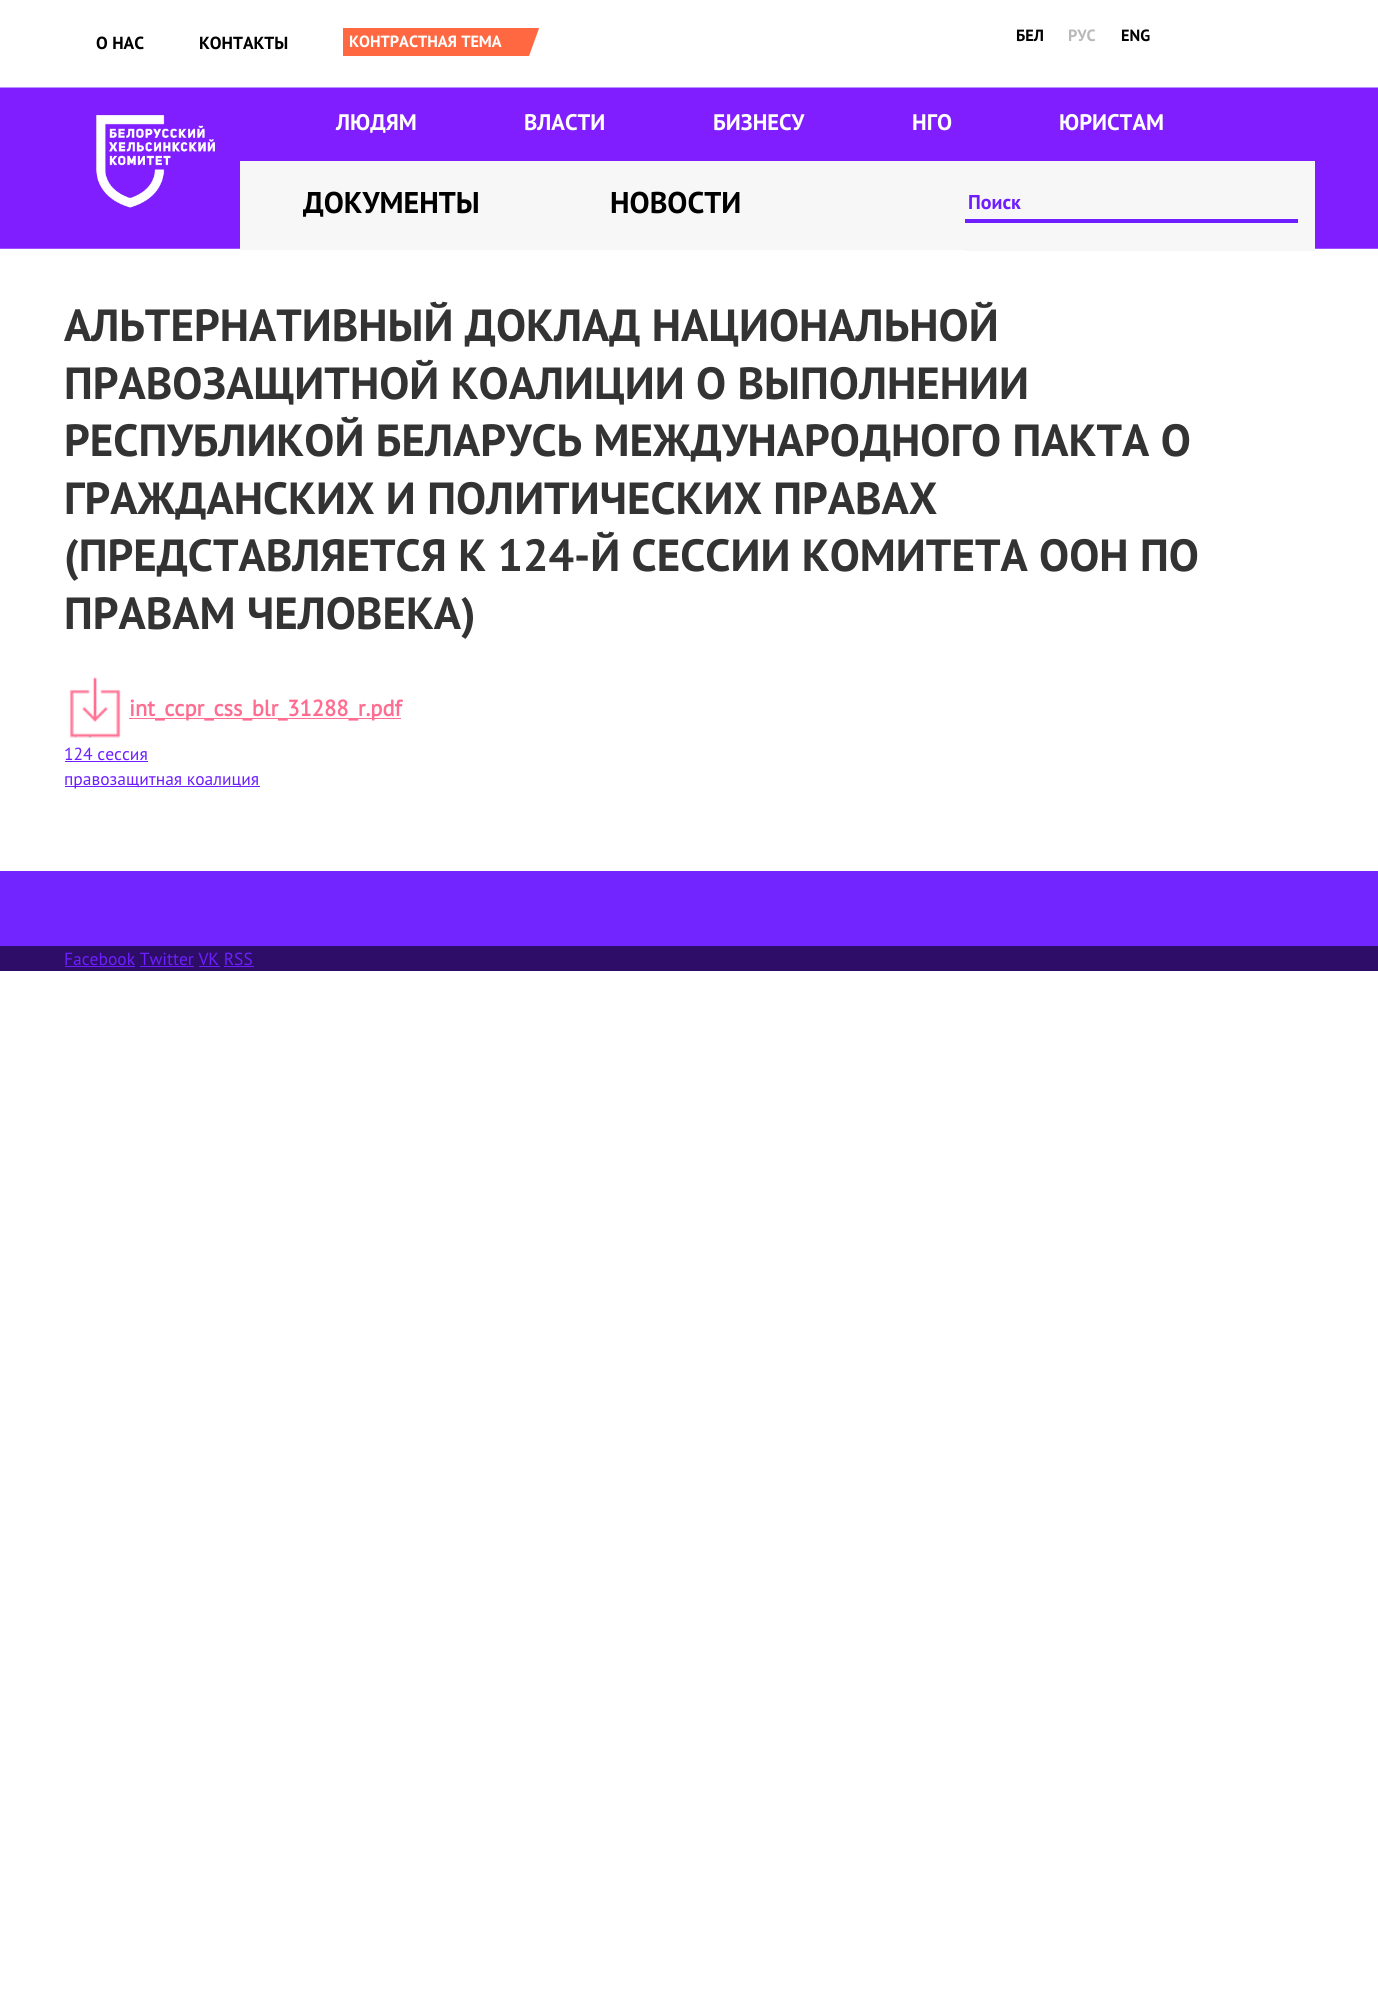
#include <cairo.h>
#include <math.h>
#include <stddef.h>


static void rgb(cairo_t *cr, int r, int g, int b)
{
	cairo_set_source_rgb(cr, r / 255.0, g / 255.0, b / 255.0);
}

static void face(cairo_t *cr, const char *family, double size, int italic, int bold)
{
	cairo_select_font_face(cr, family, italic ? CAIRO_FONT_SLANT_ITALIC : CAIRO_FONT_SLANT_NORMAL,
		bold ? CAIRO_FONT_WEIGHT_BOLD : CAIRO_FONT_WEIGHT_NORMAL);
	cairo_set_font_size(cr, size);
}

static void label(cairo_t *cr, double x, double y, const char *s)
{
	cairo_move_to(cr, x, y);
	cairo_show_text(cr, s);
}

static void rect(cairo_t *cr, double x, double y, double w, double h)
{
	cairo_rectangle(cr, x, y, w, h);
	cairo_fill(cr);
}

static void image(cairo_t *cr, const char *path, double x, double y, double w, double h)
{
	cairo_surface_t *image = cairo_image_surface_create_from_png(path);
	cairo_save(cr);
	cairo_set_source_surface(cr, image, x, y);
	cairo_rectangle(cr, x, y, w, h);
	cairo_fill(cr);
	cairo_restore(cr);
	cairo_surface_destroy(image);
}

static void draw(cairo_t *cr) {
	rgb(cr, 255, 255, 255);
	cairo_paint(cr);
	rgb(cr, 128, 30, 255);
	rect(cr, 0, 87, 1378, 162);
	image(cr, "image0.png", 0, 0, 1378, 249);
	face(cr, "PT Sans", 17.5, 0, 1);
	rgb(cr, 0, 0, 0);
	label(cr, 96, 49, "О НАС");
	label(cr, 199, 49, "КОНТАКТЫ");
	rgb(cr, 255, 104, 65);
	rect(cr, 343, 28, 197, 28);
	face(cr, "PT Sans", 16.25, 0, 1);
	rgb(cr, 255, 255, 255);
	label(cr, 349, 47, "КОНТРАСТНАЯ ТЕМА");
	cairo_save(cr);
	cairo_rectangle(cr, 343, 28, 197, 28);
	cairo_clip(cr);
	cairo_new_path(cr);
	cairo_move_to(cr, 555, -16);
	cairo_line_to(cr, 567, -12);
	cairo_line_to(cr, 460, 282);
	cairo_line_to(cr, 449, 278);
	cairo_close_path(cr);
	cairo_fill(cr);
	cairo_restore(cr);
	rgb(cr, 0, 0, 0);
	label(cr, 1016, 41, "БЕЛ");
	rgb(cr, 185, 185, 185);
	label(cr, 1068, 41, "РУС");
	rgb(cr, 0, 0, 0);
	label(cr, 1121, 41, "ENG");
	image(cr, "image1.png", 96, 115, 119, 93);
	face(cr, "PT Sans", 22.5, 0, 1);
	rgb(cr, 255, 255, 255);
	label(cr, 336, 130, "ЛЮДЯМ");
	label(cr, 524, 130, "ВЛАСТИ");
	label(cr, 713, 130, "БИЗНЕСУ");
	label(cr, 912, 130, "НГО");
	label(cr, 1059, 130, "ЮРИСТАМ");
	rgb(cr, 247, 247, 247);
	rect(cr, 240, 161, 725, 89);
	face(cr, "PT Sans", 30, 0, 1);
	rgb(cr, 0, 0, 0);
	label(cr, 303, 213, "ДОКУМЕНТЫ");
	label(cr, 610, 213, "НОВОСТИ");
	rgb(cr, 247, 247, 247);
	rect(cr, 965, 161, 350, 90);
	rgb(cr, 110, 30, 255);
	rect(cr, 965, 219, 333, 4);
	face(cr, "PT Sans", 20, 0, 1);
	label(cr, 968, 209, "Поиск");
	face(cr, "PT Sans", 45, 0, 1);
	rgb(cr, 51, 51, 51);
	label(cr, 64, 341, "АЛЬТЕРНАТИВНЫЙ ДОКЛАД НАЦИОНАЛЬНОЙ");
	label(cr, 64, 399, "ПРАВОЗАЩИТНОЙ КОАЛИЦИИ О ВЫПОЛНЕНИИ");
	label(cr, 64, 456, "РЕСПУБЛИКОЙ БЕЛАРУСЬ МЕЖДУНАРОДНОГО ПАКТА О");
	label(cr, 64, 514, "ГРАЖДАНСКИХ И ПОЛИТИЧЕСКИХ ПРАВАХ");
	label(cr, 64, 571, "(ПРЕДСТАВЛЯЕТСЯ К 124-Й СЕССИИ КОМИТЕТА ООН ПО");
	label(cr, 64, 629, "ПРАВАМ ЧЕЛОВЕКА)");
	image(cr, "image2.png", 69, 677, 52, 61);
	rgb(cr, 255, 110, 145);
	rect(cr, 129, 718, 272, 1);
	face(cr, "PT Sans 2", 22.5, 0, 1);
	label(cr, 129, 716, "int_ccpr_css_blr_31288_r.pdf");
	face(cr, "PT Sans", 17.5, 0, 0);
	rgb(cr, 110, 30, 255);
	label(cr, 64, 760, "124 сессия");
	rect(cr, 65, 761, 83, 1);
	rect(cr, 65, 786, 195, 1);
	label(cr, 64, 785, "правозащитная коалиция");
	rgb(cr, 45, 13, 103);
	rect(cr, 0, 946, 1378, 25);
	rgb(cr, 114, 37, 255);
	rect(cr, 0, 871, 1378, 75);
	rgb(cr, 110, 30, 255);
	label(cr, 64, 965, "Facebook Twitter VK RSS");
	rect(cr, 65, 966, 70, 1);
	rect(cr, 140, 966, 54, 1);
	rect(cr, 199, 966, 21, 1);
	rect(cr, 224, 966, 30, 1);
}

int main(void) {
	cairo_surface_t *surface = cairo_image_surface_create(CAIRO_FORMAT_RGB24, 1378, 2012);
	cairo_t *cr = cairo_create(surface);
	cairo_font_options_t *options = cairo_font_options_create();
	cairo_font_options_set_hint_metrics(options, CAIRO_HINT_METRICS_OFF);
	cairo_font_options_set_hint_style(options, CAIRO_HINT_STYLE_NONE);
	cairo_set_font_options(cr, options);
	cairo_set_miter_limit(cr, 4);
	draw(cr);
	cairo_surface_write_to_png(surface, "render.png");
	cairo_font_options_destroy(options);
	cairo_destroy(cr);
	cairo_surface_destroy(surface);
	return 0;
}
